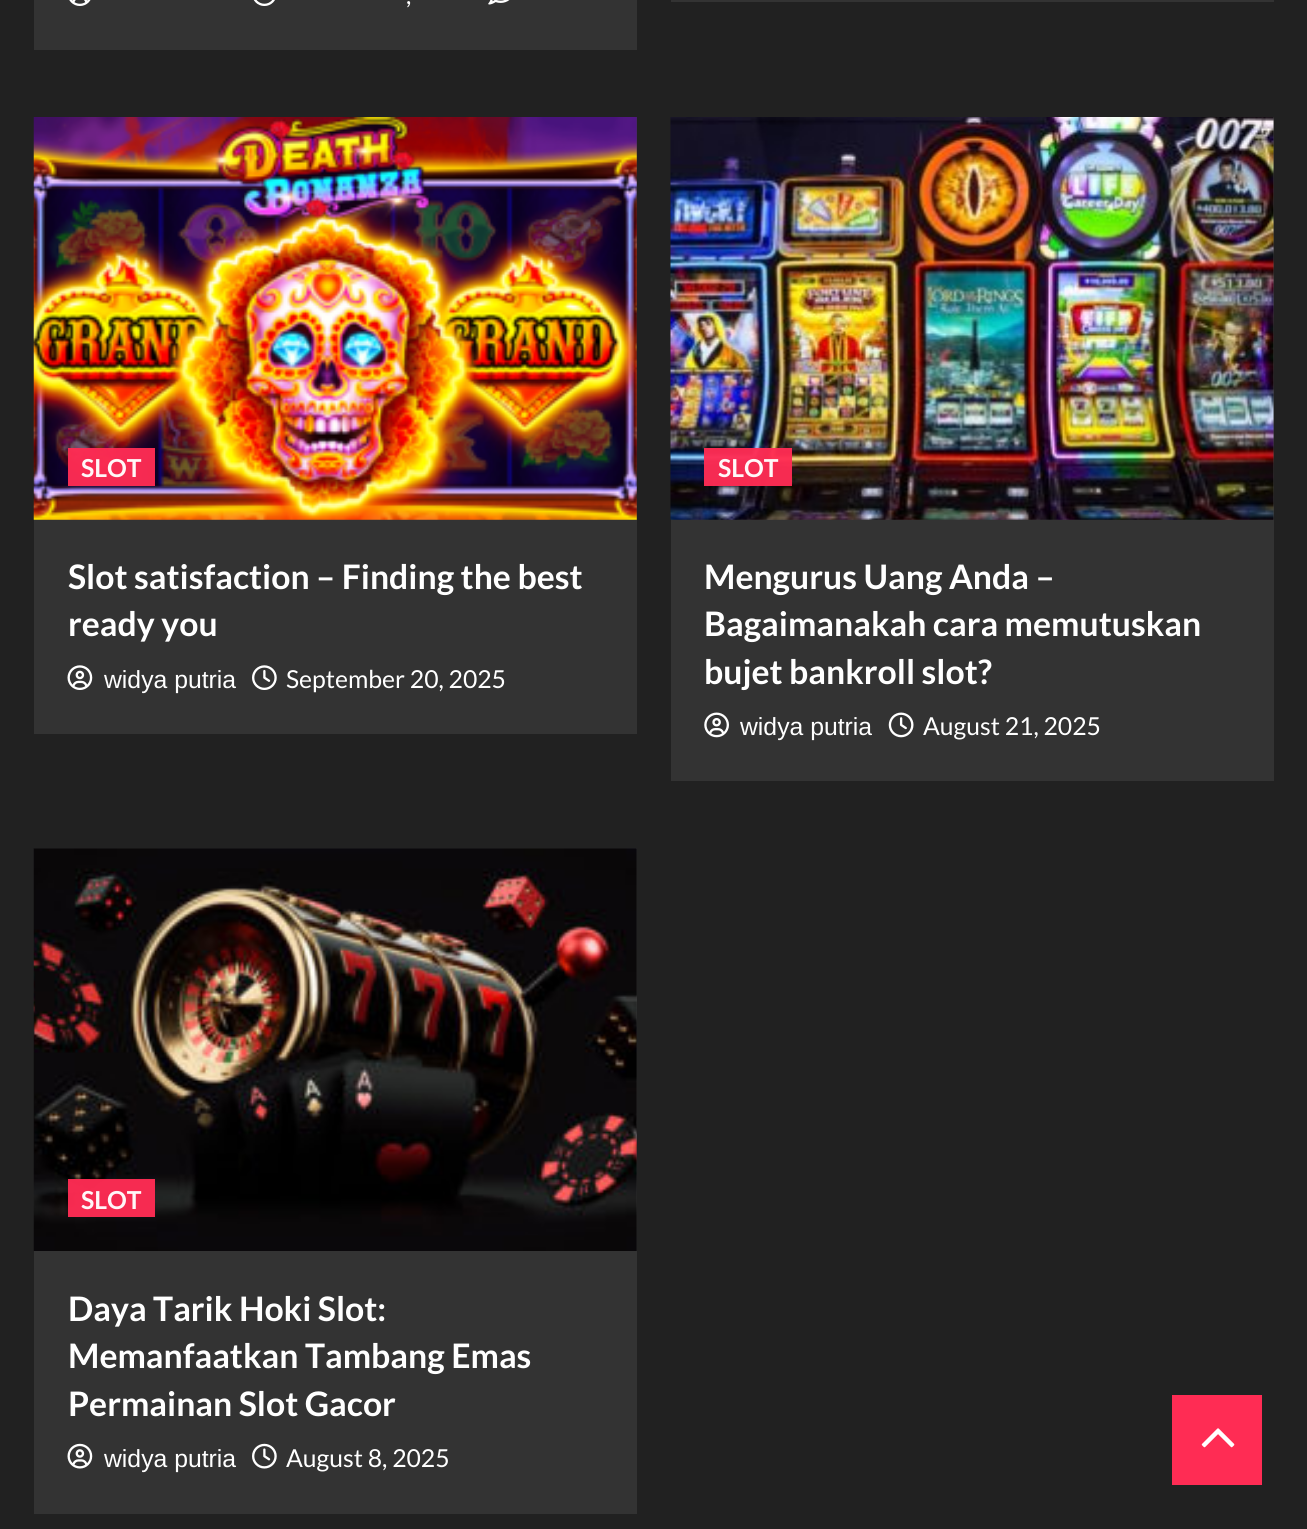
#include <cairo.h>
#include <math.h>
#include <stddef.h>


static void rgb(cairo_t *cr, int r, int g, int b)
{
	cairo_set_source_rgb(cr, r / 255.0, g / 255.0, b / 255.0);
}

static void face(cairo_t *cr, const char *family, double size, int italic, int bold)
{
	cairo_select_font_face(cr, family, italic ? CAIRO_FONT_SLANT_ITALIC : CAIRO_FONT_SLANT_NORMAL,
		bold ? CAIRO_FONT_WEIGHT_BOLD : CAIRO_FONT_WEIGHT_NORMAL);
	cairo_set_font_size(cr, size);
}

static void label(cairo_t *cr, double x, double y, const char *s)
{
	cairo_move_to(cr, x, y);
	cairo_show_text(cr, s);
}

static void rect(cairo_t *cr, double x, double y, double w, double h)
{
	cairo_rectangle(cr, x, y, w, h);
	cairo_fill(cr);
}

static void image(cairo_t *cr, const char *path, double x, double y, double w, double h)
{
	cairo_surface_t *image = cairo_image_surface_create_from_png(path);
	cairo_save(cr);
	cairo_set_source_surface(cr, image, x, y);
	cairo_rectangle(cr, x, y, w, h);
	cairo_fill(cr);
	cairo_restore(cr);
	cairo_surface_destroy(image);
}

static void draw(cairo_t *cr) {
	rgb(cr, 33, 33, 33);
	cairo_paint(cr);
	rgb(cr, 51, 51, 51);
	rect(cr, 34, 0, 603, 50);
	image(cr, "image0.png", 69, 0, 22, 6);
	image(cr, "image1.png", 253, 0, 22, 6);
	face(cr, "Lato", 24.75, 0, 0);
	rgb(cr, 255, 255, 255);
	label(cr, 406, 4, ",");
	image(cr, "image2.png", 488, 0, 22, 5);
	rgb(cr, 51, 51, 51);
	rect(cr, 671, 0, 603, 2);
	rect(cr, 34, 520, 603, 214);
	rgb(cr, 61, 61, 61);
	rect(cr, 34, 117, 603, 403);
	image(cr, "image3.png", 33, 117, 604, 403);
	cairo_set_source_rgba(cr, 1, 0.173, 0.329, 0.96);
	rect(cr, 68, 448, 87, 38);
	face(cr, "Lato", 24.75, 0, 1);
	rgb(cr, 255, 247, 248);
	label(cr, 81, 477, "SLOT");
	face(cr, "Lato", 33.75, 0, 1);
	rgb(cr, 255, 255, 255);
	label(cr, 68, 589, "Slot satisfaction – Finding the best");
	label(cr, 68, 636, "ready you");
	image(cr, "image4.png", 67, 665, 26, 25);
	face(cr, "Liberation Sans", 24.75, 0, 0);
	label(cr, 104, 688, "widya putria");
	image(cr, "image5.png", 252, 665, 25, 25);
	face(cr, "Lato", 24.75, 0, 0);
	label(cr, 286, 688, "September 20, 2025");
	rgb(cr, 51, 51, 51);
	rect(cr, 671, 520, 603, 261);
	rgb(cr, 61, 61, 61);
	rect(cr, 671, 117, 603, 403);
	image(cr, "image6.png", 670, 117, 604, 403);
	cairo_set_source_rgba(cr, 1, 0.173, 0.329, 0.96);
	rect(cr, 704, 448, 88, 38);
	face(cr, "Lato", 24.75, 0, 1);
	rgb(cr, 255, 247, 248);
	label(cr, 718, 477, "SLOT");
	face(cr, "Lato", 33.75, 0, 1);
	rgb(cr, 255, 255, 255);
	label(cr, 704, 589, "Mengurus Uang Anda –");
	label(cr, 704, 636, "Bagaimanakah cara memutuskan");
	label(cr, 704, 684, "bujet bankroll slot?");
	image(cr, "image7.png", 704, 712, 25, 26);
	face(cr, "Liberation Sans", 24.75, 0, 0);
	label(cr, 740, 735, "widya putria");
	image(cr, "image8.png", 888, 712, 26, 26);
	face(cr, "Lato", 24.75, 0, 0);
	label(cr, 923, 735, "August 21, 2025");
	rgb(cr, 51, 51, 51);
	rect(cr, 34, 1251, 603, 263);
	rgb(cr, 61, 61, 61);
	rect(cr, 34, 848, 603, 403);
	image(cr, "image9.png", 33, 848, 604, 403);
	cairo_set_source_rgba(cr, 1, 0.173, 0.329, 0.96);
	rect(cr, 68, 1179, 87, 38);
	face(cr, "Lato", 24.75, 0, 1);
	rgb(cr, 255, 247, 248);
	label(cr, 81, 1209, "SLOT");
	face(cr, "Lato", 33.75, 0, 1);
	rgb(cr, 255, 255, 255);
	label(cr, 68, 1321, "Daya Tarik Hoki Slot:");
	label(cr, 68, 1368, "Memanfaatkan Tambang Emas");
	label(cr, 68, 1416, "Permainan Slot Gacor");
	image(cr, "image10.png", 67, 1443, 26, 26);
	face(cr, "Liberation Sans", 24.75, 0, 0);
	label(cr, 104, 1467, "widya putria");
	image(cr, "image11.png", 252, 1443, 25, 26);
	face(cr, "Lato", 24.75, 0, 0);
	label(cr, 286, 1467, "August 8, 2025");
	rgb(cr, 255, 44, 84);
	rect(cr, 1172, 1395, 90, 90);
	image(cr, "image12.png", 1201, 1428, 34, 20);
}

int main(void) {
	cairo_surface_t *surface = cairo_image_surface_create(CAIRO_FORMAT_RGB24, 1307, 1529);
	cairo_t *cr = cairo_create(surface);
	cairo_font_options_t *options = cairo_font_options_create();
	cairo_font_options_set_hint_metrics(options, CAIRO_HINT_METRICS_OFF);
	cairo_font_options_set_hint_style(options, CAIRO_HINT_STYLE_NONE);
	cairo_set_font_options(cr, options);
	cairo_set_miter_limit(cr, 4);
	draw(cr);
	cairo_surface_write_to_png(surface, "render.png");
	cairo_font_options_destroy(options);
	cairo_destroy(cr);
	cairo_surface_destroy(surface);
	return 0;
}
